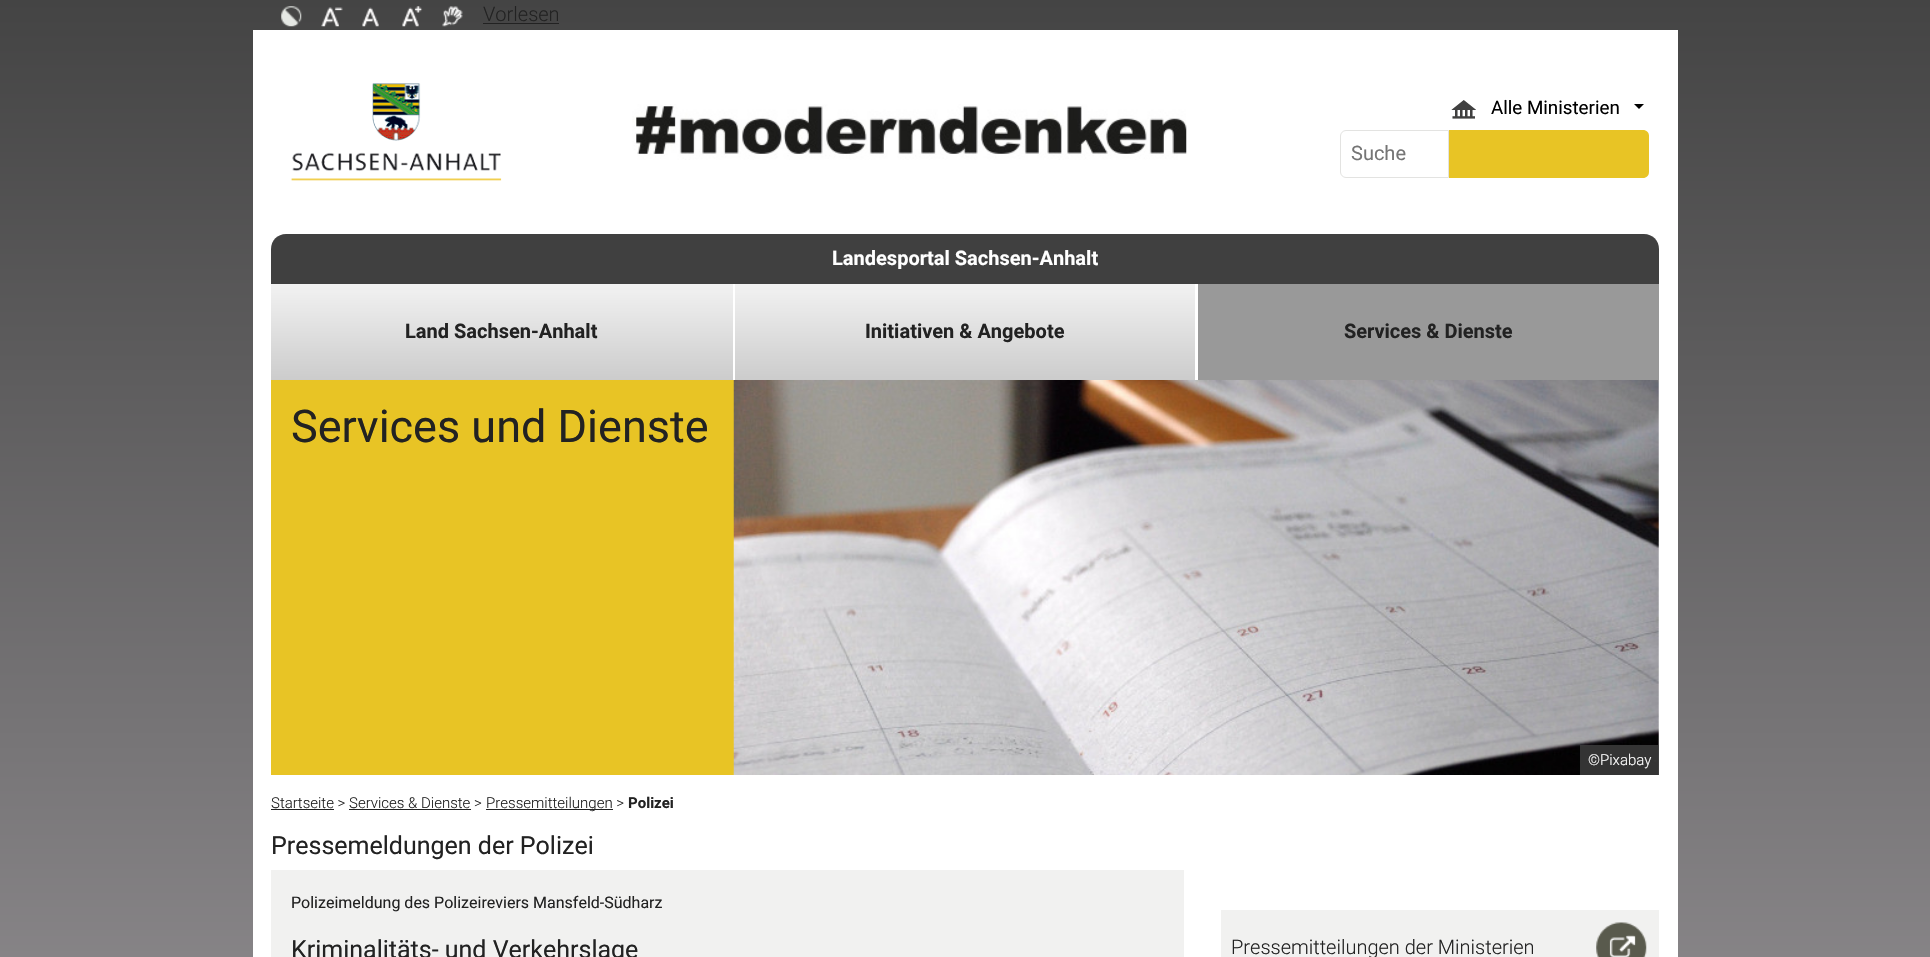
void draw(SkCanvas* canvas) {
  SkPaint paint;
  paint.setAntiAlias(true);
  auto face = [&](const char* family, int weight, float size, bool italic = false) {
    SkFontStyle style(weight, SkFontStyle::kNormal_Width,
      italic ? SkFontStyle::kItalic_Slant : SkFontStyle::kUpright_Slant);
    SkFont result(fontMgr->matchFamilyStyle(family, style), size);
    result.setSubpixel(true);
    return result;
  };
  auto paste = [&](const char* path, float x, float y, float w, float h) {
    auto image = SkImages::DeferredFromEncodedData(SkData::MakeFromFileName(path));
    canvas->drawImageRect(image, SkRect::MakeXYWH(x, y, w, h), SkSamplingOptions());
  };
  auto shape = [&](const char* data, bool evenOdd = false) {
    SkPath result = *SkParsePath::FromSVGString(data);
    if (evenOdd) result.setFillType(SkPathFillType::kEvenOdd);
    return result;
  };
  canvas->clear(0xffffffff);
  {
    const SkColor colors[] = {0xff444444, 0xff8f8c8f};
    const float stops[] = {0, 0.3f};
    const SkPoint ends[] = {{965, 0}, {965, 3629}};
    paint.setShader(SkGradientShader::MakeLinear(ends, colors, stops, 2, SkTileMode::kClamp));
    paint.setAlpha(255);
  }
  canvas->drawRect(SkRect::MakeXYWH(0, 0, 1930, 957), paint);
  paste("img/1.png", 281, 6, 21, 21);
  paste("img/2.png", 321, 7, 22, 20);
  paste("img/3.png", 362, 7, 17, 20);
  paste("img/4.png", 402, 6, 21, 21);
  paste("img/5.png", 442, 6, 21, 21);
  paint.setShader(nullptr);
  paint.setColor(0xff222222);
  canvas->drawRect(SkRect::MakeXYWH(483, 23, 76, 1), paint);
  paint.setColor(0xffffffff);
  canvas->drawRect(SkRect::MakeXYWH(253, 30, 1425, 927), paint);
  paste("img/6.png", 290, 83, 212, 98);
  paste("img/7.png", 632, 104, 555, 56);
  paste("img/8.png", 1451, 100, 25, 19);
  paint.setColor(0xff000000);
  canvas->drawPath(shape("M1634 104H1644L1639 109Z"), paint);
  paint.setStroke(true);
  paint.setStrokeWidth(1);
  paint.setColor(0xffe3e3e1);
  canvas->drawPath(shape("M1346 130.5H1448.5V177.5H1346C1343 177.5 1340.5 175 1340.5 172V136C1340.5 133 1343 130.5 1346 130.5Z"), paint);
  paint.setStroke(false);
  paint.setColor(0xffe8c425);
  canvas->drawPath(shape("M1449 130H1643C1646.5 130 1649 132.5 1649 136V172C1649 175.5 1646.5 178 1643 178H1449Z"), paint);
  paint.setColor(0xff404040);
  canvas->drawPath(shape("M286 234H1644C1652.5 234 1659 240.5 1659 249V284H271V249C271 240.5 277.5 234 286 234Z"), paint);
  {
    const SkColor colors[] = {0xfff2f2f2, 0xffcccccc};
    const float stops[] = {0, 1};
    const SkPoint ends[] = {{502, 284}, {502, 380}};
    paint.setShader(SkGradientShader::MakeLinear(ends, colors, stops, 2, SkTileMode::kClamp));
    paint.setAlpha(255);
  }
  canvas->drawRect(SkRect::MakeXYWH(271, 284, 462, 96), paint);
  {
    const SkColor colors[] = {0xfff2f2f2, 0xffcccccc};
    const float stops[] = {0, 1};
    const SkPoint ends[] = {{965, 284}, {965, 380}};
    paint.setShader(SkGradientShader::MakeLinear(ends, colors, stops, 2, SkTileMode::kClamp));
    paint.setAlpha(255);
  }
  canvas->drawRect(SkRect::MakeXYWH(735, 284, 460, 96), paint);
  paint.setShader(nullptr);
  paint.setColor(0xff999999);
  canvas->drawRect(SkRect::MakeXYWH(1198, 284, 461, 96), paint);
  paint.setColor(0xffe8c425);
  canvas->drawRect(SkRect::MakeXYWH(271, 380, 463, 395), paint);
  paste("img/9.png", 733, 380, 926, 395);
  {
    const struct { float x, y, w, h; SkColor color; } items[] = {
      {1580, 745, 79, 30, 0xcc404040},
      {271, 809, 63, 1, 0xff222222},
      {486, 809, 127, 1, 0xff222222},
      {349, 809, 122, 1, 0xff222222},
      {271, 870, 913, 87, 0xfff1f1f0},
      {1221, 910, 438, 47, 0xfff1f1f0},
    };
    for (auto [x, y, w, h, color] : items) {
      paint.setColor(color);
      canvas->drawRect(SkRect::MakeXYWH(x, y, w, h), paint);
    }
  }
  paste("img/10.png", 1596, 922, 51, 35);
  auto f0 = face("Roboto", 300, 20);
  paint.setColor(0xff222222);
  canvas->drawString("Vorlesen", 483, 21, f0, paint);
  auto f1 = face("Roboto", 400, 18.75f);
  paint.setColor(0xff000000);
  canvas->drawString("Alle Ministerien", 1491, 114, f1, paint);
  auto f2 = face("Roboto", 400, 20);
  paint.setColor(0xff757575);
  canvas->drawString("Suche", 1351, 160, f2, paint);
  auto f3 = face("Roboto", 700, 20);
  paint.setColor(0xffffffff);
  canvas->drawString("Landesportal Sachsen-Anhalt", 832, 265, f3, paint);
  paint.setColor(0xff222222);
  {
    const struct { const char* s; float x, y; } items[] = {
      {"Land Sachsen-Anhalt", 405, 338},
      {"Initiativen & Angebote", 865, 338},
      {"Services & Dienste", 1344, 338},
    };
    for (auto [s, x, y] : items) {
      canvas->drawString(s, x, y, f3, paint);
    }
  }
  auto f4 = face("Roboto", 400, 45);
  canvas->drawString("Services und Dienste", 291, 442, f4, paint);
  auto f5 = face("Roboto", 300, 15);
  paint.setColor(0xffffffff);
  canvas->drawString("©Pixabay", 1588, 765, f5, paint);
  paint.setColor(0xff222222);
  canvas->drawString("Startseite > Services & Dienste >", 271, 808, f5, paint);
  canvas->drawString("Pressemitteilungen >", 486, 808, f5, paint);
  auto f6 = face("Roboto", 700, 15);
  canvas->drawString("Polizei", 628, 808, f6, paint);
  auto f7 = face("Roboto", 400, 25);
  canvas->drawString("Pressemeldungen der Polizei", 271, 854, f7, paint);
  auto f8 = face("Roboto", 400, 16);
  canvas->drawString("Polizeimeldung des Polizeireviers Mansfeld-Südharz", 291, 908, f8, paint);
  canvas->drawString("Kriminalitäts- und Verkehrslage", 291, 958, f7, paint);
  canvas->drawString("Pressemitteilungen der Ministerien", 1231, 954, f0, paint);
}
